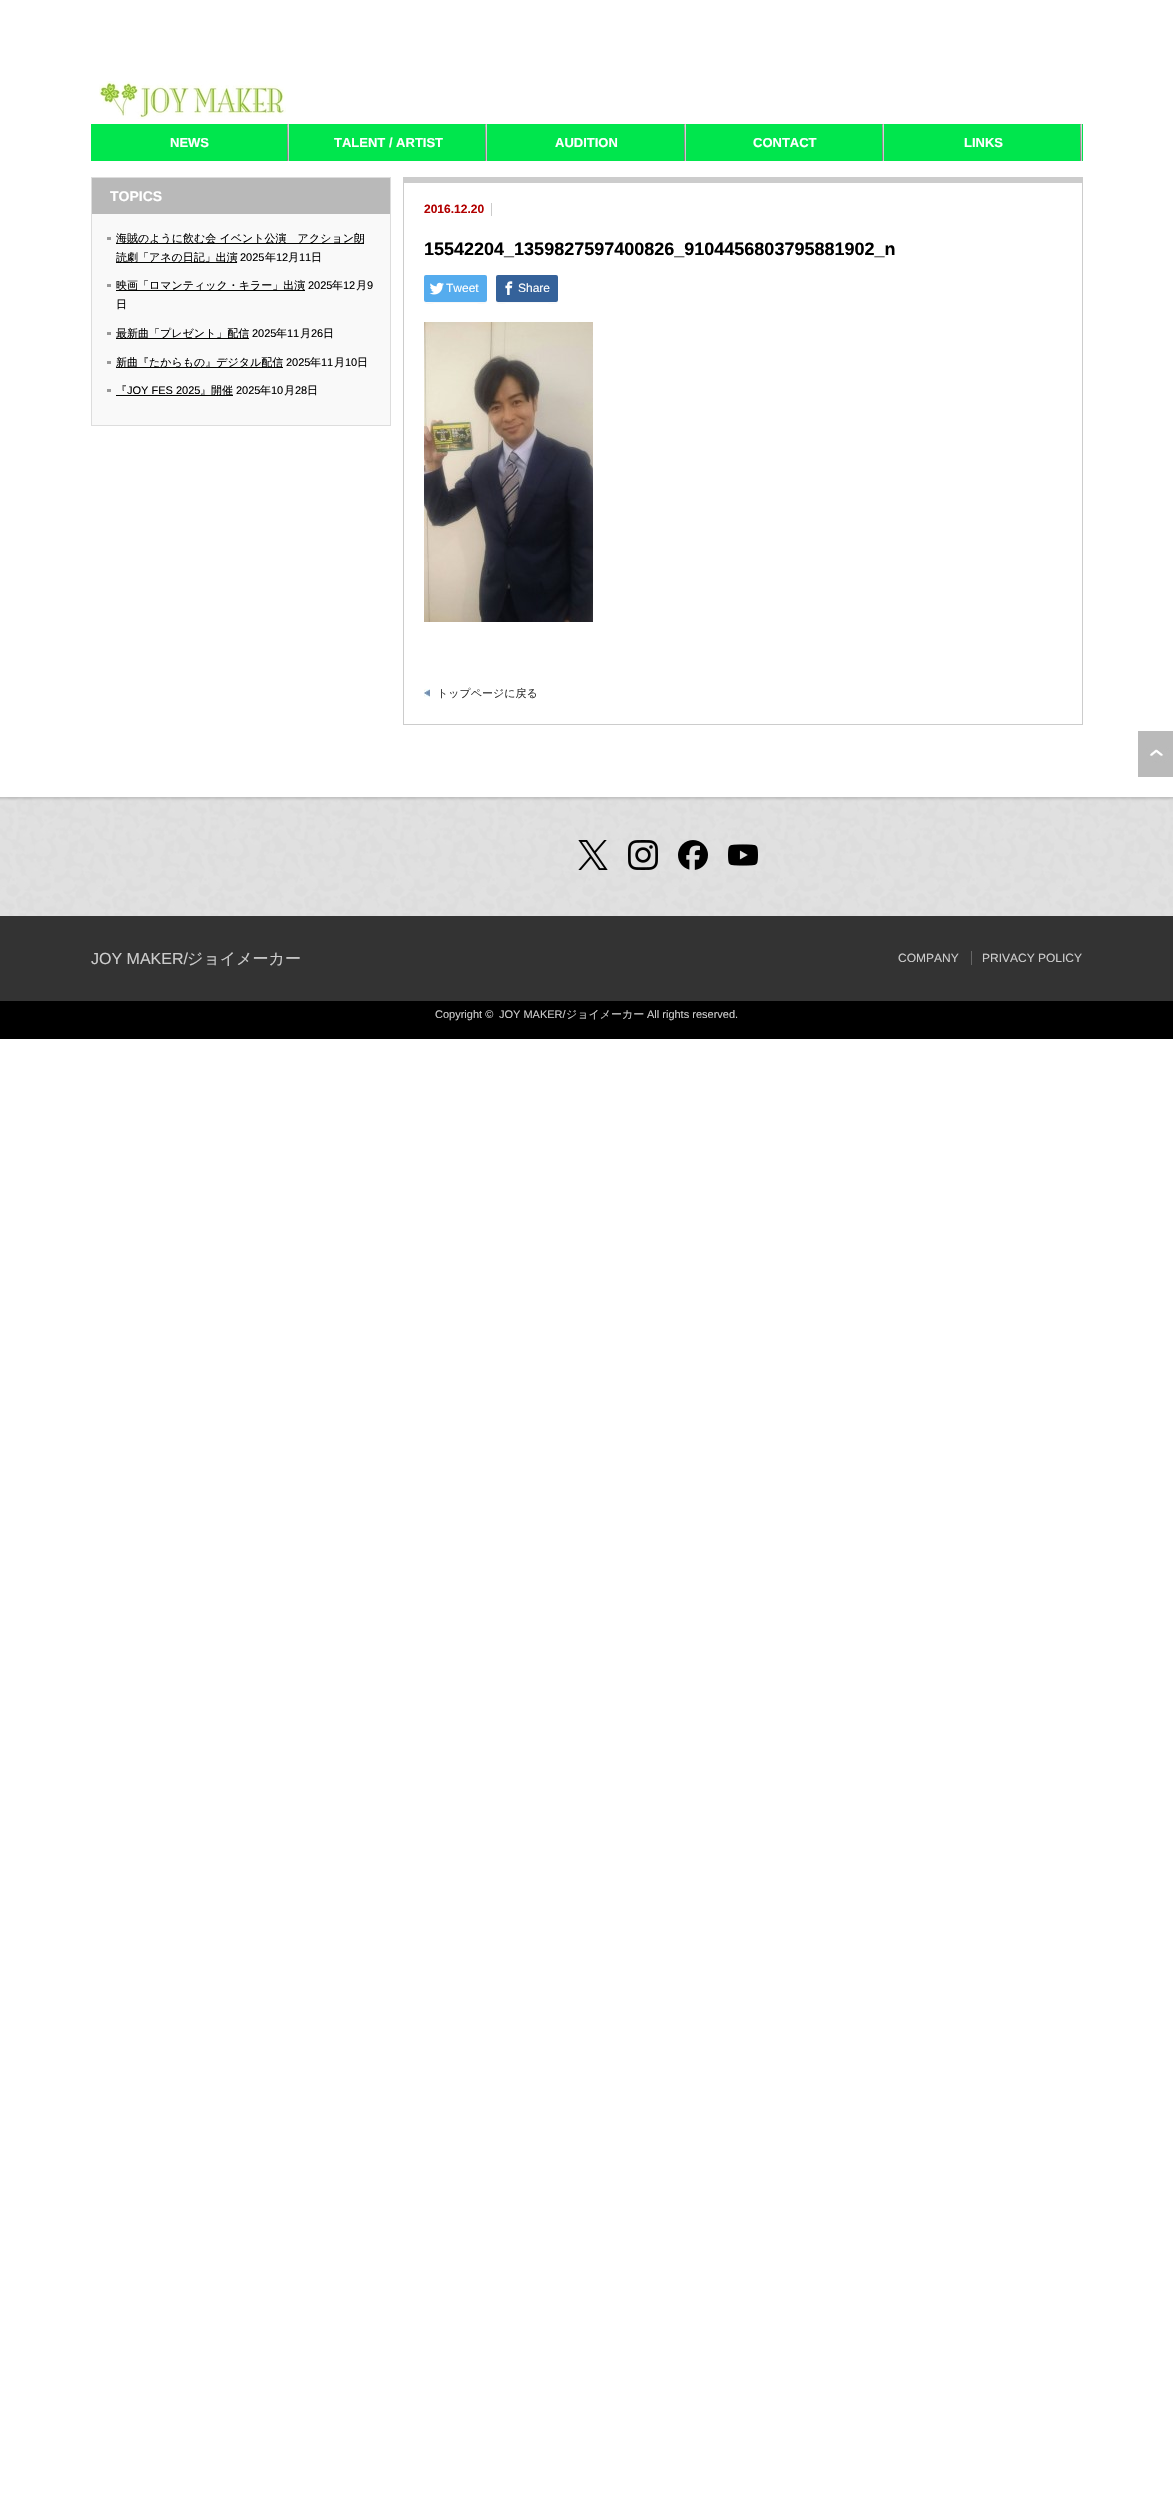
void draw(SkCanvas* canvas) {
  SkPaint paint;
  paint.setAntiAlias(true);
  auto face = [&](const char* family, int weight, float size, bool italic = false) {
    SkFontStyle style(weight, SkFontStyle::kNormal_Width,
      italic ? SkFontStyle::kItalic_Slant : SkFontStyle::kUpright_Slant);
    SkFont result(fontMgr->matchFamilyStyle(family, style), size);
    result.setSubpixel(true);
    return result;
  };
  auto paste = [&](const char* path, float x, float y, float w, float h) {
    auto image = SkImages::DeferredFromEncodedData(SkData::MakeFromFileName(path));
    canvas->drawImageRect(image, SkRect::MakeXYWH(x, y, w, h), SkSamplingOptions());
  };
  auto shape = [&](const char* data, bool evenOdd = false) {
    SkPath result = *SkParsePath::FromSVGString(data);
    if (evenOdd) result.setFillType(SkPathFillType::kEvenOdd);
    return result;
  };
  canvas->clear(0xffffffff);
  paste("img/1.png", 99, 81, 187, 38);
  paint.setColor(0xff00e64d);
  canvas->drawRect(SkRect::MakeXYWH(91, 124, 992, 37), paint);
  paste("img/2.png", 287, 124, 2, 37);
  paste("img/2.png", 485, 124, 2, 37);
  paste("img/2.png", 684, 124, 2, 37);
  paste("img/2.png", 882, 124, 2, 37);
  paste("img/2.png", 1080, 124, 2, 37);
  paint.setColor(0xfff9f9f9);
  canvas->drawRect(SkRect::MakeXYWH(92, 214, 298, 211), paint);
  paint.setStroke(true);
  paint.setStrokeWidth(1);
  paint.setColor(0xffdddddd);
  canvas->drawRect(SkRect::MakeXYWH(91.5f, 177.5f, 299, 248), paint);
  paint.setStroke(false);
  {
    const struct { float x, y, w, h; SkColor color; } items[] = {
      {92, 178, 298, 36, 0xffb9b9b9},
      {107, 237, 4, 3, 0xff999999},
      {116, 243, 248, 1, 0xff030502},
      {116, 262, 121, 1, 0xff030502},
      {107, 284, 4, 3, 0xff999999},
      {116, 290, 189, 1, 0xff030502},
      {107, 332, 4, 3, 0xff999999},
      {116, 338, 133, 1, 0xff030502},
      {107, 361, 4, 3, 0xff999999},
      {116, 367, 167, 1, 0xff030502},
      {107, 389, 4, 3, 0xff999999},
      {116, 395, 117, 1, 0xff030502},
      {403, 177, 680, 6, 0xffcccccc},
      {1082, 177, 1, 548, 0xffcccccc},
      {403, 724, 680, 1, 0xffcccccc},
      {403, 177, 1, 548, 0xffcccccc},
      {491, 203, 1, 13, 0xffcccccc},
    };
    for (auto [x, y, w, h, color] : items) {
      paint.setColor(color);
      canvas->drawRect(SkRect::MakeXYWH(x, y, w, h), paint);
    }
  }
  paint.setColor(0xfff7f7f7);
  canvas->drawPath(shape("M424 300C424 306 432 303 436 303H475C479 303 487 306 487 300L486 302H436C432 302 424 304 424 300Z"), paint);
  paint.setColor(0xff55acee);
  canvas->drawRoundRect(SkRect::MakeXYWH(424, 275, 63, 27), 2, 2, paint);
  paste("img/3.png", 429, 282, 15, 13);
  paint.setColor(0xfff7f7f7);
  canvas->drawPath(shape("M496 300C496 306 504 303 508 303H546C550 303 558 306 558 300C558 304 550 302 546 302H497Z"), paint);
  paint.setColor(0xff35629a);
  canvas->drawRoundRect(SkRect::MakeXYWH(496, 275, 62, 27), 2, 2, paint);
  paste("img/4.png", 505, 281, 8, 14);
  paste("img/5.png", 424, 322, 169, 300);
  paste("img/6.png", 424, 689, 6, 8);
  paste("img/7.png", 1138, 731, 35, 46);
  paste("img/8.png", 0, 797, 1173, 119);
  paste("img/9.png", 578, 840, 30, 30);
  paste("img/10.png", 628, 840, 30, 30);
  paste("img/11.png", 678, 840, 30, 30);
  paste("img/12.png", 728, 844, 30, 22);
  {
    const struct { float x, y, w, h; SkColor color; } items[] = {
      {0, 916, 1173, 85, 0xff333333},
      {971, 951, 1, 14, 0xff666666},
      {0, 1001, 1173, 38, 0xff000000},
    };
    for (auto [x, y, w, h, color] : items) {
      paint.setColor(color);
      canvas->drawRect(SkRect::MakeXYWH(x, y, w, h), paint);
    }
  }
  auto f0 = face("Liberation Sans", 700, 13);
  paint.setColor(0xffffffff);
  {
    const struct { const char* s; float x, y; } items[] = {
      {"NEWS", 170, 147},
      {"TALENT / ARTIST", 334, 147},
      {"AUDITION", 555, 147},
      {"CONTACT", 753, 147},
      {"LINKS", 964, 147},
    };
    for (auto [s, x, y] : items) {
      canvas->drawString(s, x, y, f0, paint);
    }
  }
  auto f1 = face("Liberation Sans", 700, 14);
  canvas->drawString("TOPICS", 110, 201, f1, paint);
  auto f2 = face("WenQuanYi Zen Hei", 500, 11);
  paint.setColor(0xff000000);
  canvas->drawString("海賊のように飲む会 イベント公演　アクション朗", 116, 242, f2, paint);
  canvas->drawString("読劇「アネの日記」出演", 116, 261, f2, paint);
  auto f3 = face("Liberation Sans", 400, 11);
  canvas->drawString("2025", 240, 261, f3, paint);
  canvas->drawString("年", 265, 261, f2, paint);
  canvas->drawString("12", 276, 261, f3, paint);
  canvas->drawString("月", 288, 261, f2, paint);
  canvas->drawString("11", 299, 261, f3, paint);
  canvas->drawString("日", 311, 261, f2, paint);
  canvas->drawString("映画「ロマンティック・キラー」出演", 116, 289, f2, paint);
  canvas->drawString("2025", 308, 289, f3, paint);
  canvas->drawString("年", 332, 289, f2, paint);
  canvas->drawString("12", 343, 289, f3, paint);
  canvas->drawString("月", 356, 289, f2, paint);
  canvas->drawString("9", 367, 289, f3, paint);
  canvas->drawString("日", 116, 308, f2, paint);
  canvas->drawString("最新曲「プレゼント」配信", 116, 337, f2, paint);
  canvas->drawString("2025", 252, 337, f3, paint);
  canvas->drawString("年", 276, 337, f2, paint);
  canvas->drawString("11", 287, 337, f3, paint);
  canvas->drawString("月", 300, 337, f2, paint);
  canvas->drawString("26", 311, 337, f3, paint);
  canvas->drawString("日", 323, 337, f2, paint);
  canvas->drawString("新曲『たからもの』デジタル配信", 116, 366, f2, paint);
  canvas->drawString("2025", 286, 366, f3, paint);
  canvas->drawString("年", 310, 366, f2, paint);
  canvas->drawString("11", 321, 366, f3, paint);
  canvas->drawString("月", 334, 366, f2, paint);
  canvas->drawString("10", 345, 366, f3, paint);
  canvas->drawString("日", 357, 366, f2, paint);
  canvas->drawString("『", 116, 394, f2, paint);
  canvas->drawString("JOY FES 2025", 127, 394, f3, paint);
  canvas->drawString("』開催", 200, 394, f2, paint);
  canvas->drawString("2025", 236, 394, f3, paint);
  canvas->drawString("年", 260, 394, f2, paint);
  canvas->drawString("10", 271, 394, f3, paint);
  canvas->drawString("月", 284, 394, f2, paint);
  canvas->drawString("28", 295, 394, f3, paint);
  canvas->drawString("日", 307, 394, f2, paint);
  auto f4 = face("Liberation Sans", 700, 12);
  paint.setColor(0xffb20000);
  canvas->drawString("2016.12.20", 424, 213, f4, paint);
  auto f5 = face("Liberation Sans", 700, 18);
  paint.setColor(0xff000000);
  canvas->drawString("15542204_1359827597400826_9104456803795881902_n", 424, 255, f5, paint);
  auto f6 = face("Liberation Sans", 400, 12);
  paint.setColor(0xffffffff);
  canvas->drawString("Tweet", 446, 292, f6, paint);
  canvas->drawString("Share", 518, 292, f6, paint);
  paint.setColor(0xff333333);
  canvas->drawString("トップページに戻る", 437, 697, f2, paint);
  auto f7 = face("Liberation Sans", 400, 16);
  paint.setColor(0xffcccccc);
  canvas->drawString("JOY MAKER/", 91, 964, f7, paint);
  auto f8 = face("WenQuanYi Zen Hei", 500, 16);
  canvas->drawString("ジョイメーカー", 187, 964, f8, paint);
  canvas->drawString("COMPANY", 898, 962, f6, paint);
  canvas->drawString("PRIVACY POLICY", 982, 962, f6, paint);
  canvas->drawString("Copyright ©", 435, 1018, f3, paint);
  canvas->drawString("JOY MAKER/", 499, 1018, f3, paint);
  canvas->drawString("ジョイメーカー", 566, 1018, f2, paint);
  canvas->drawString("All rights reserved.", 647, 1018, f3, paint);
}
